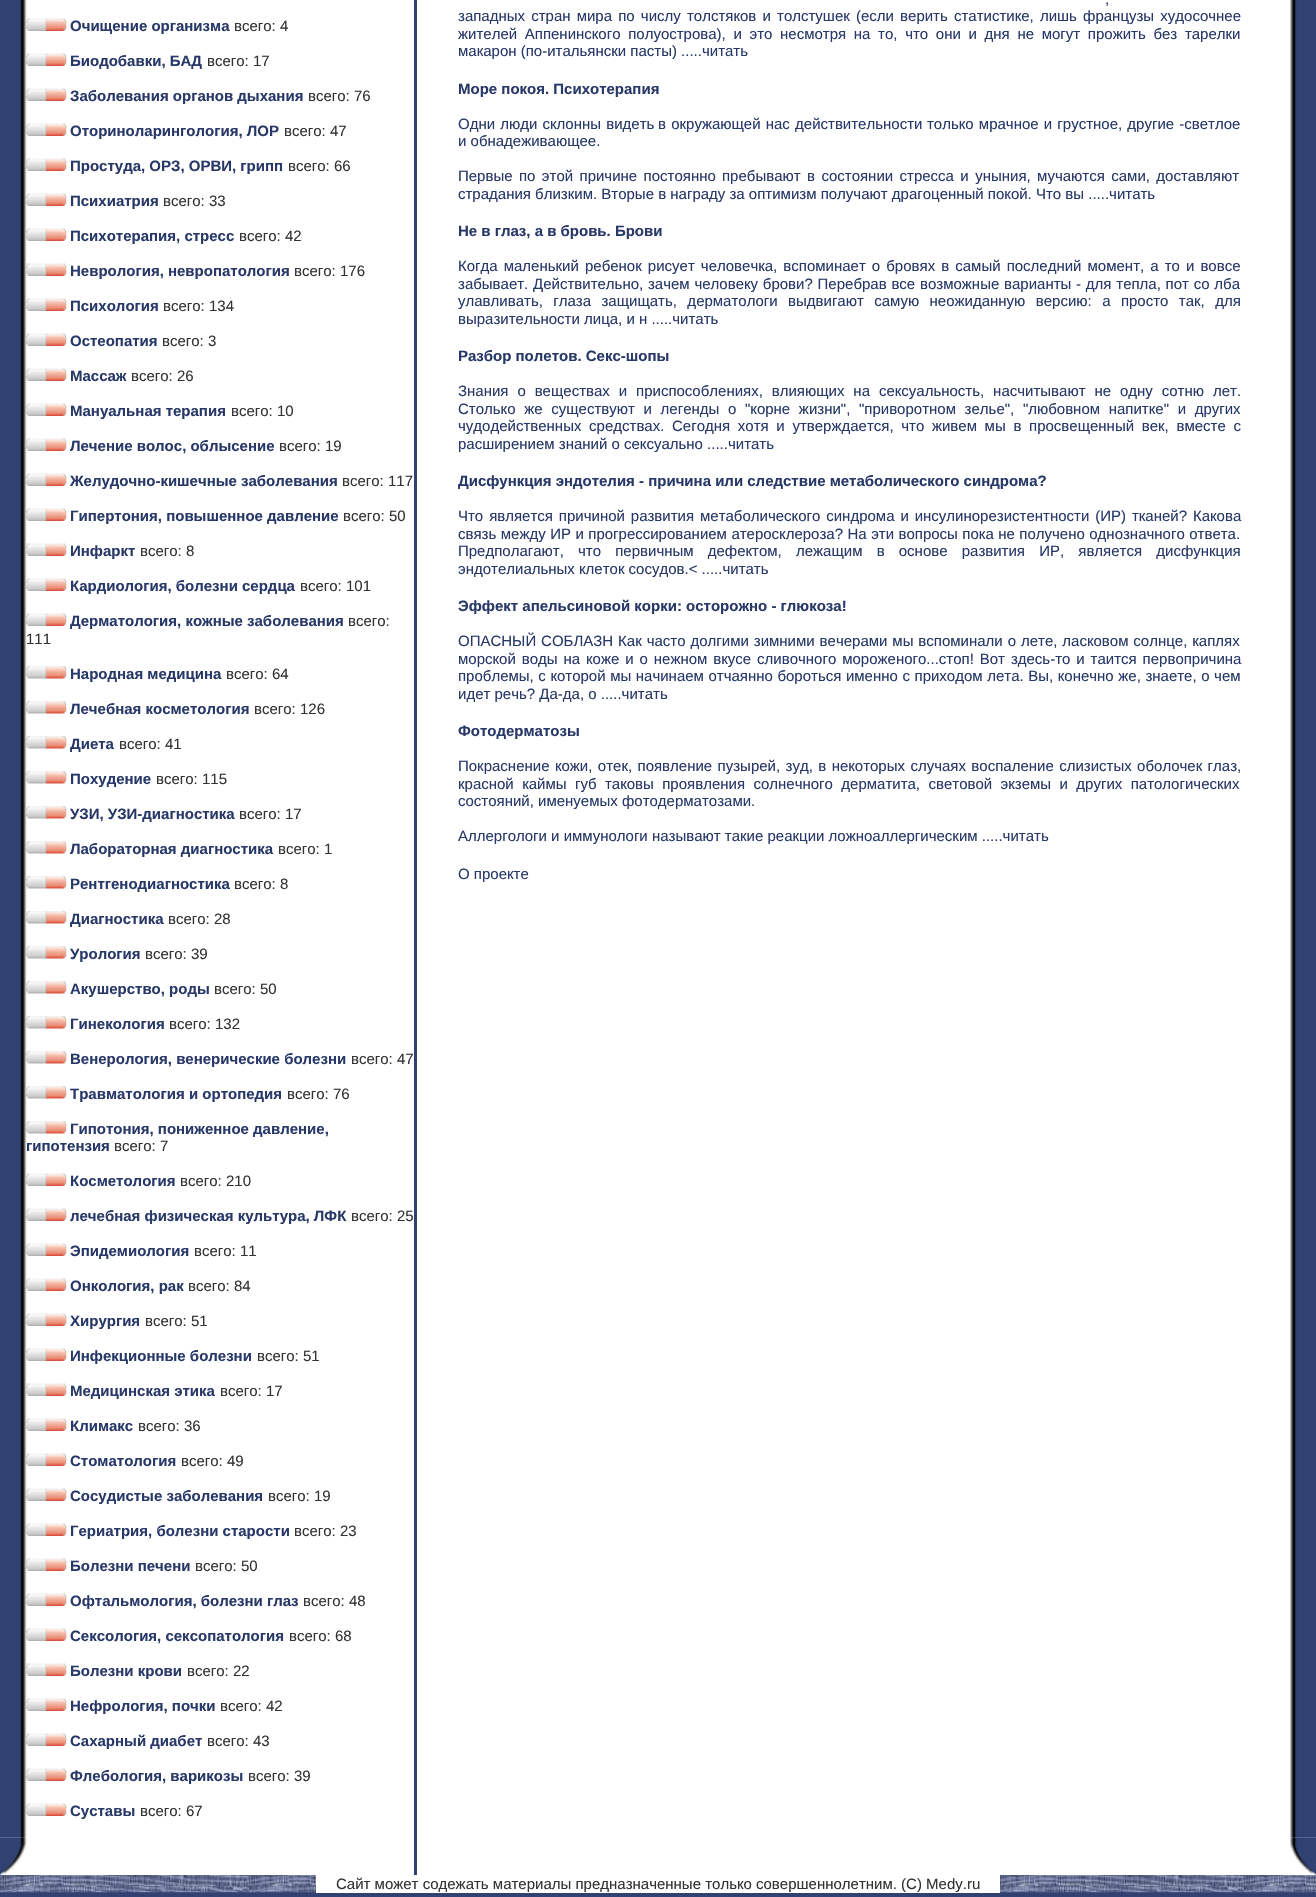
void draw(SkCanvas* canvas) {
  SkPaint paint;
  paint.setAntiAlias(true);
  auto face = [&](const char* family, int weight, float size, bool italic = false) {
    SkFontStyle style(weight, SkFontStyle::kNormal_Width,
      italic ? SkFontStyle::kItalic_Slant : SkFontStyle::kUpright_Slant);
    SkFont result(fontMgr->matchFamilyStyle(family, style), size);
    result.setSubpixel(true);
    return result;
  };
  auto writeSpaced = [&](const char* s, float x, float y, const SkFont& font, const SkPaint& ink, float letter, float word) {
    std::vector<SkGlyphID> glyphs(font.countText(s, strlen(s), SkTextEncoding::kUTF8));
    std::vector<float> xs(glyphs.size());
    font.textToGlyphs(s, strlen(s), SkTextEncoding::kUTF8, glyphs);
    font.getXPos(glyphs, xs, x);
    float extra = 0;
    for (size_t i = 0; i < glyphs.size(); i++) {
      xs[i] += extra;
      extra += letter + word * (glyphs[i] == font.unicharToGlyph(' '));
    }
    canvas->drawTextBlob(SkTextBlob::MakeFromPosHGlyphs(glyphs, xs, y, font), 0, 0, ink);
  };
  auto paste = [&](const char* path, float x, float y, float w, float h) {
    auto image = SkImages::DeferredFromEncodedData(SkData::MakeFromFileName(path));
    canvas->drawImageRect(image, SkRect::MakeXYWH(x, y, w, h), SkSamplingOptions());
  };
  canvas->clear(0xff314172);
  paste("img/1.png", 0, 1875, 1316, 18);
  paint.setColor(0xffffffff);
  canvas->drawRect(SkRect::MakeXYWH(0, 0, 1316, 1875), paint);
  paste("img/2.png", 0, 0, 27, 1838);
  paste("img/3.png", 26, 18, 41, 13);
  paste("img/4.png", 26, 53, 41, 13);
  paste("img/3.png", 26, 88, 41, 13);
  paste("img/5.png", 26, 123, 41, 13);
  paste("img/3.png", 26, 158, 41, 13);
  paste("img/3.png", 26, 193, 41, 13);
  paste("img/3.png", 26, 228, 41, 13);
  paste("img/3.png", 26, 263, 41, 13);
  paste("img/3.png", 26, 298, 41, 13);
  paste("img/3.png", 26, 333, 41, 13);
  paste("img/3.png", 26, 368, 41, 13);
  paste("img/3.png", 26, 403, 41, 13);
  paste("img/3.png", 26, 438, 41, 13);
  paste("img/3.png", 26, 473, 41, 13);
  paste("img/3.png", 26, 508, 41, 13);
  paste("img/3.png", 26, 543, 41, 13);
  paste("img/3.png", 26, 578, 41, 13);
  paste("img/3.png", 26, 613, 41, 13);
  paste("img/6.png", 26, 666, 41, 13);
  paste("img/6.png", 26, 701, 41, 13);
  paste("img/6.png", 26, 736, 41, 13);
  paste("img/6.png", 26, 771, 41, 13);
  paste("img/6.png", 26, 806, 41, 13);
  paste("img/6.png", 26, 841, 41, 13);
  paste("img/6.png", 26, 876, 41, 13);
  paste("img/6.png", 26, 911, 41, 13);
  paste("img/6.png", 26, 946, 41, 13);
  paste("img/6.png", 26, 981, 41, 13);
  paste("img/6.png", 26, 1016, 41, 13);
  paste("img/6.png", 26, 1051, 41, 13);
  paste("img/6.png", 26, 1086, 41, 13);
  paste("img/6.png", 26, 1121, 41, 13);
  paste("img/3.png", 26, 1173, 41, 13);
  paste("img/3.png", 26, 1208, 41, 13);
  paste("img/3.png", 26, 1243, 41, 13);
  paste("img/3.png", 26, 1278, 41, 13);
  paste("img/3.png", 26, 1313, 41, 13);
  paste("img/3.png", 26, 1348, 41, 13);
  paste("img/3.png", 26, 1383, 41, 13);
  paste("img/3.png", 26, 1418, 41, 13);
  paste("img/3.png", 26, 1453, 41, 13);
  paste("img/3.png", 26, 1488, 41, 13);
  paste("img/3.png", 26, 1523, 41, 13);
  paste("img/3.png", 26, 1558, 41, 13);
  paste("img/3.png", 26, 1593, 41, 13);
  paste("img/3.png", 26, 1628, 41, 13);
  paste("img/3.png", 26, 1663, 41, 13);
  paste("img/3.png", 26, 1698, 41, 13);
  paste("img/3.png", 26, 1733, 41, 13);
  paste("img/3.png", 26, 1768, 41, 13);
  paste("img/3.png", 26, 1803, 41, 13);
  paint.setColor(0xff314172);
  canvas->drawRect(SkRect::MakeXYWH(414, 0, 3, 1875), paint);
  paste("img/7.png", 1290, 0, 26, 1838);
  paste("img/8.png", 0, 1837, 27, 38);
  paste("img/9.png", 1290, 1837, 26, 38);
  paint.setColor(0xffffffff);
  canvas->drawRect(SkRect::MakeXYWH(316, 1875, 684, 18), paint);
  auto f0 = face("Liberation Sans", 700, 15);
  paint.setColor(0xff283868);
  canvas->drawString("Очищение организма", 70, 31, f0, paint);
  auto f1 = face("Liberation Sans", 400, 15);
  paint.setColor(0xff333333);
  canvas->drawString("всего: 4", 234, 31, f1, paint);
  paint.setColor(0xff283868);
  canvas->drawString("Биодобавки, БАД", 70, 66, f0, paint);
  paint.setColor(0xff333333);
  canvas->drawString("всего: 17", 207, 66, f1, paint);
  paint.setColor(0xff283868);
  canvas->drawString("Заболевания органов дыхания", 70, 101, f0, paint);
  paint.setColor(0xff333333);
  canvas->drawString("всего: 76", 308, 101, f1, paint);
  paint.setColor(0xff283868);
  canvas->drawString("Оториноларингология, ЛОР", 70, 136, f0, paint);
  paint.setColor(0xff333333);
  canvas->drawString("всего: 47", 284, 136, f1, paint);
  paint.setColor(0xff283868);
  canvas->drawString("Простуда, ОРЗ, ОРВИ, грипп", 70, 171, f0, paint);
  paint.setColor(0xff333333);
  canvas->drawString("всего: 66", 288, 171, f1, paint);
  paint.setColor(0xff283868);
  canvas->drawString("Психиатрия", 70, 206, f0, paint);
  paint.setColor(0xff333333);
  canvas->drawString("всего: 33", 163, 206, f1, paint);
  paint.setColor(0xff283868);
  canvas->drawString("Психотерапия, стресс", 70, 241, f0, paint);
  paint.setColor(0xff333333);
  canvas->drawString("всего: 42", 239, 241, f1, paint);
  paint.setColor(0xff283868);
  canvas->drawString("Неврология, невропатология", 70, 276, f0, paint);
  paint.setColor(0xff333333);
  canvas->drawString("всего: 176", 294, 276, f1, paint);
  paint.setColor(0xff283868);
  canvas->drawString("Психология", 70, 311, f0, paint);
  paint.setColor(0xff333333);
  canvas->drawString("всего: 134", 163, 311, f1, paint);
  paint.setColor(0xff283868);
  canvas->drawString("Остеопатия", 70, 346, f0, paint);
  paint.setColor(0xff333333);
  canvas->drawString("всего: 3", 162, 346, f1, paint);
  paint.setColor(0xff283868);
  canvas->drawString("Массаж", 70, 381, f0, paint);
  paint.setColor(0xff333333);
  canvas->drawString("всего: 26", 131, 381, f1, paint);
  paint.setColor(0xff283868);
  canvas->drawString("Мануальная терапия", 70, 416, f0, paint);
  paint.setColor(0xff333333);
  canvas->drawString("всего: 10", 231, 416, f1, paint);
  paint.setColor(0xff283868);
  canvas->drawString("Лечение волос, облысение", 70, 451, f0, paint);
  paint.setColor(0xff333333);
  canvas->drawString("всего: 19", 279, 451, f1, paint);
  paint.setColor(0xff283868);
  canvas->drawString("Желудочно-кишечные заболевания", 70, 486, f0, paint);
  paint.setColor(0xff333333);
  canvas->drawString("всего: 117", 342, 486, f1, paint);
  paint.setColor(0xff283868);
  canvas->drawString("Гипертония, повышенное давление", 70, 521, f0, paint);
  paint.setColor(0xff333333);
  canvas->drawString("всего: 50", 343, 521, f1, paint);
  paint.setColor(0xff283868);
  canvas->drawString("Инфаркт", 70, 556, f0, paint);
  paint.setColor(0xff333333);
  canvas->drawString("всего: 8", 140, 556, f1, paint);
  paint.setColor(0xff283868);
  canvas->drawString("Кардиология, болезни сердца", 70, 591, f0, paint);
  paint.setColor(0xff333333);
  canvas->drawString("всего: 101", 300, 591, f1, paint);
  paint.setColor(0xff283868);
  canvas->drawString("Дерматология, кожные заболевания", 70, 626, f0, paint);
  paint.setColor(0xff333333);
  canvas->drawString("всего:", 348, 626, f1, paint);
  canvas->drawString("111", 26, 644, f1, paint);
  paint.setColor(0xff283868);
  canvas->drawString("Народная медицина", 70, 679, f0, paint);
  paint.setColor(0xff333333);
  canvas->drawString("всего: 64", 226, 679, f1, paint);
  paint.setColor(0xff283868);
  canvas->drawString("Лечебная косметология", 70, 714, f0, paint);
  paint.setColor(0xff333333);
  canvas->drawString("всего: 126", 254, 714, f1, paint);
  paint.setColor(0xff283868);
  canvas->drawString("Диета", 70, 749, f0, paint);
  paint.setColor(0xff333333);
  canvas->drawString("всего: 41", 119, 749, f1, paint);
  paint.setColor(0xff283868);
  canvas->drawString("Похудение", 70, 784, f0, paint);
  paint.setColor(0xff333333);
  canvas->drawString("всего: 115", 156, 784, f1, paint);
  paint.setColor(0xff283868);
  canvas->drawString("УЗИ, УЗИ-диагностика", 70, 819, f0, paint);
  paint.setColor(0xff333333);
  canvas->drawString("всего: 17", 239, 819, f1, paint);
  paint.setColor(0xff283868);
  canvas->drawString("Лабораторная диагностика", 70, 854, f0, paint);
  paint.setColor(0xff333333);
  canvas->drawString("всего: 1", 278, 854, f1, paint);
  paint.setColor(0xff283868);
  canvas->drawString("Рентгенодиагностика", 70, 889, f0, paint);
  paint.setColor(0xff333333);
  canvas->drawString("всего: 8", 234, 889, f1, paint);
  paint.setColor(0xff283868);
  canvas->drawString("Диагностика", 70, 924, f0, paint);
  paint.setColor(0xff333333);
  canvas->drawString("всего: 28", 168, 924, f1, paint);
  paint.setColor(0xff283868);
  canvas->drawString("Урология", 70, 959, f0, paint);
  paint.setColor(0xff333333);
  canvas->drawString("всего: 39", 145, 959, f1, paint);
  paint.setColor(0xff283868);
  canvas->drawString("Акушерство, роды", 70, 994, f0, paint);
  paint.setColor(0xff333333);
  canvas->drawString("всего: 50", 214, 994, f1, paint);
  paint.setColor(0xff283868);
  canvas->drawString("Гинекология", 70, 1029, f0, paint);
  paint.setColor(0xff333333);
  canvas->drawString("всего: 132", 169, 1029, f1, paint);
  paint.setColor(0xff283868);
  canvas->drawString("Венерология, венерические болезни", 70, 1064, f0, paint);
  paint.setColor(0xff333333);
  canvas->drawString("всего: 47", 351, 1064, f1, paint);
  paint.setColor(0xff283868);
  canvas->drawString("Травматология и ортопедия", 70, 1099, f0, paint);
  paint.setColor(0xff333333);
  canvas->drawString("всего: 76", 287, 1099, f1, paint);
  paint.setColor(0xff283868);
  canvas->drawString("Гипотония, пониженное давление,", 70, 1134, f0, paint);
  canvas->drawString("гипотензия", 26, 1151, f0, paint);
  paint.setColor(0xff333333);
  canvas->drawString("всего: 7", 114, 1151, f1, paint);
  paint.setColor(0xff283868);
  canvas->drawString("Косметология", 70, 1186, f0, paint);
  paint.setColor(0xff333333);
  canvas->drawString("всего: 210", 180, 1186, f1, paint);
  paint.setColor(0xff283868);
  canvas->drawString("лечебная физическая культура, ЛФК", 70, 1221, f0, paint);
  paint.setColor(0xff333333);
  canvas->drawString("всего: 25", 351, 1221, f1, paint);
  paint.setColor(0xff283868);
  canvas->drawString("Эпидемиология", 70, 1256, f0, paint);
  paint.setColor(0xff333333);
  canvas->drawString("всего: 11", 194, 1256, f1, paint);
  paint.setColor(0xff283868);
  canvas->drawString("Онкология, рак", 70, 1291, f0, paint);
  paint.setColor(0xff333333);
  canvas->drawString("всего: 84", 188, 1291, f1, paint);
  paint.setColor(0xff283868);
  canvas->drawString("Хирургия", 70, 1326, f0, paint);
  paint.setColor(0xff333333);
  canvas->drawString("всего: 51", 145, 1326, f1, paint);
  paint.setColor(0xff283868);
  canvas->drawString("Инфекционные болезни", 70, 1361, f0, paint);
  paint.setColor(0xff333333);
  canvas->drawString("всего: 51", 257, 1361, f1, paint);
  paint.setColor(0xff283868);
  canvas->drawString("Медицинская этика", 70, 1396, f0, paint);
  paint.setColor(0xff333333);
  canvas->drawString("всего: 17", 220, 1396, f1, paint);
  paint.setColor(0xff283868);
  canvas->drawString("Климакс", 70, 1431, f0, paint);
  paint.setColor(0xff333333);
  canvas->drawString("всего: 36", 138, 1431, f1, paint);
  paint.setColor(0xff283868);
  canvas->drawString("Стоматология", 70, 1466, f0, paint);
  paint.setColor(0xff333333);
  canvas->drawString("всего: 49", 181, 1466, f1, paint);
  paint.setColor(0xff283868);
  canvas->drawString("Сосудистые заболевания", 70, 1501, f0, paint);
  paint.setColor(0xff333333);
  canvas->drawString("всего: 19", 268, 1501, f1, paint);
  paint.setColor(0xff283868);
  canvas->drawString("Гериатрия, болезни старости", 70, 1536, f0, paint);
  paint.setColor(0xff333333);
  canvas->drawString("всего: 23", 294, 1536, f1, paint);
  paint.setColor(0xff283868);
  canvas->drawString("Болезни печени", 70, 1571, f0, paint);
  paint.setColor(0xff333333);
  canvas->drawString("всего: 50", 195, 1571, f1, paint);
  paint.setColor(0xff283868);
  canvas->drawString("Офтальмология, болезни глаз", 70, 1606, f0, paint);
  paint.setColor(0xff333333);
  canvas->drawString("всего: 48", 303, 1606, f1, paint);
  paint.setColor(0xff283868);
  canvas->drawString("Сексология, сексопатология", 70, 1641, f0, paint);
  paint.setColor(0xff333333);
  canvas->drawString("всего: 68", 289, 1641, f1, paint);
  paint.setColor(0xff283868);
  canvas->drawString("Болезни крови", 70, 1676, f0, paint);
  paint.setColor(0xff333333);
  canvas->drawString("всего: 22", 187, 1676, f1, paint);
  paint.setColor(0xff283868);
  canvas->drawString("Нефрология, почки", 70, 1711, f0, paint);
  paint.setColor(0xff333333);
  canvas->drawString("всего: 42", 220, 1711, f1, paint);
  paint.setColor(0xff283868);
  canvas->drawString("Сахарный диабет", 70, 1746, f0, paint);
  paint.setColor(0xff333333);
  canvas->drawString("всего: 43", 207, 1746, f1, paint);
  paint.setColor(0xff283868);
  canvas->drawString("Флебология, варикозы", 70, 1781, f0, paint);
  paint.setColor(0xff333333);
  canvas->drawString("всего: 39", 248, 1781, f1, paint);
  paint.setColor(0xff283868);
  canvas->drawString("Суставы", 70, 1816, f0, paint);
  paint.setColor(0xff333333);
  canvas->drawString("всего: 67", 140, 1816, f1, paint);
  paint.setColor(0xff283868);
  writeSpaced(",", 1105, 4, f1, paint, 0, 7);
  writeSpaced("западных стран мира по числу толстяков и толстушек (если верить статистике, лишь французы худосочнее", 458, 21, f1, paint, 0, 2);
  writeSpaced("жителей Аппенинского полуострова), и это несмотря на то, что они и дня не могут прожить без тарелки", 458, 39, f1, paint, 0, 3.5f);
  canvas->drawString("макарон (по-итальянски пасты) .....читать", 458, 56, f1, paint);
  canvas->drawString("Море покоя. Психотерапия", 458, 94, f0, paint);
  {
    const struct { const char* s; float x, y; } items[] = {
      {"Одни люди склонны видеть", 458, 129},
      {"в окружающей нас действительности", 658, 129},
      {"только мрачное и грустное, другие -светлое", 927, 129},
    };
    for (auto [s, x, y] : items) {
      writeSpaced(s, x, y, f1, paint, 0, 1);
    }
  }
  canvas->drawString("и обнадеживающее.", 458, 146, f1, paint);
  writeSpaced("Первые по этой причине постоянно", 458, 181, f1, paint, 0, 2.25f);
  writeSpaced("пребывают в состоянии стресса и уныния, мучаются сами, доставляют", 722, 181, f1, paint, 0, 2.25f);
  canvas->drawString("страдания близким. Вторые в награду за оптимизм получают драгоценный покой. Что вы .....читать", 458, 199, f1, paint);
  canvas->drawString("Не в глаз, а в бровь. Брови", 458, 236, f0, paint);
  writeSpaced("Когда маленький ребенок рисует человечка, вспоминает о бровях в самый последний момент, а то и вовсе", 458, 271, f1, paint, 0, 1.9f);
  writeSpaced("забывает. Действительно, зачем человеку брови? Перебрав все возможные варианты - для тепла, пот со лба", 458, 289, f1, paint, 0, 0.6f);
  writeSpaced("улавливать, глаза защищать, дерматологи выдвигают самую неожиданную версию: а просто так, для", 458, 306, f1, paint, 0, 6.25f);
  canvas->drawString("выразительности лица, и н .....читать", 458, 324, f1, paint);
  canvas->drawString("Разбор полетов. Секс-шопы", 458, 361, f0, paint);
  writeSpaced("Знания о веществах и приспособлениях, влияющих на сексуальность, насчитывают не одну сотню лет.", 458, 396, f1, paint, 0, 4.75f);
  writeSpaced("Столько же существуют и легенды о \"корне жизни\", \"приворотном зелье\", \"любовном напитке\" и других", 458, 414, f1, paint, 0, 4.5f);
  writeSpaced("чудодейственных средствах. Сегодня хотя и утверждается, что живем мы в просвещенный век, вместе с", 458, 431, f1, paint, 0, 3.5f);
  canvas->drawString("расширением знаний о сексуально .....читать", 458, 449, f1, paint);
  canvas->drawString("Дисфункция эндотелия - причина или следствие метаболического синдрома?", 458, 486, f0, paint);
  writeSpaced("Что является причиной развития метаболического синдрома и инсулинорезистентности (ИР) тканей? Какова", 458, 521, f1, paint, 0, 1.75f);
  writeSpaced("связь между ИР и прогрессированием атеросклероза? На эти вопросы пока не получено однозначного ответа.", 458, 539, f1, paint, 0, 0.3f);
  writeSpaced("Предполагают, что первичным дефектом, лежащим в основе развития ИР, является дисфункция", 458, 556, f1, paint, 0, 10);
  canvas->drawString("эндотелиальных клеток сосудов.< .....читать", 458, 574, f1, paint);
  canvas->drawString("Эффект апельсиновой корки: осторожно - глюкоза!", 458, 611, f0, paint);
  writeSpaced("ОПАСНЫЙ СОБЛАЗН Как часто долгими зимними вечерами мы вспоминали о лете, ласковом солнце, каплях", 458, 646, f1, paint, 0, 0.75f);
  writeSpaced("морской воды на коже и о нежном вкусе сливочного мороженого...стоп! Вот здесь-то и таится первопричина", 458, 664, f1, paint, 0, 1.75f);
  writeSpaced("проблемы, с которой мы начинаем отчаянно бороться именно с приходом лета. Вы, конечно же, знаете, о чем", 458, 681, f1, paint, 0, 0.4f);
  canvas->drawString("идет речь? Да-да, о .....читать", 458, 699, f1, paint);
  canvas->drawString("Фотодерматозы", 458, 736, f0, paint);
  writeSpaced("Покраснение кожи, отек, появление пузырей, зуд, в некоторых случаях воспаление слизистых оболочек глаз,", 458, 771, f1, paint, 0, 1.25f);
  writeSpaced("красной каймы губ таковы проявления солнечного дерматита, световой экземы и других патологических", 458, 789, f1, paint, 0, 4.25f);
  {
    const struct { const char* s; float x, y; } items[] = {
      {"состояний, именуемых фотодерматозами.", 458, 806},
      {"Аллергологи и иммунологи называют такие реакции ложноаллергическим .....читать", 458, 841},
      {"О проекте", 458, 879},
    };
    for (auto [s, x, y] : items) {
      canvas->drawString(s, x, y, f1, paint);
    }
  }
  paint.setColor(0xff333333);
  canvas->drawString("Сайт может содежать материалы предназначенные только совершеннолетним. (С) Medy.ru", 336, 1889, f1, paint);
}
